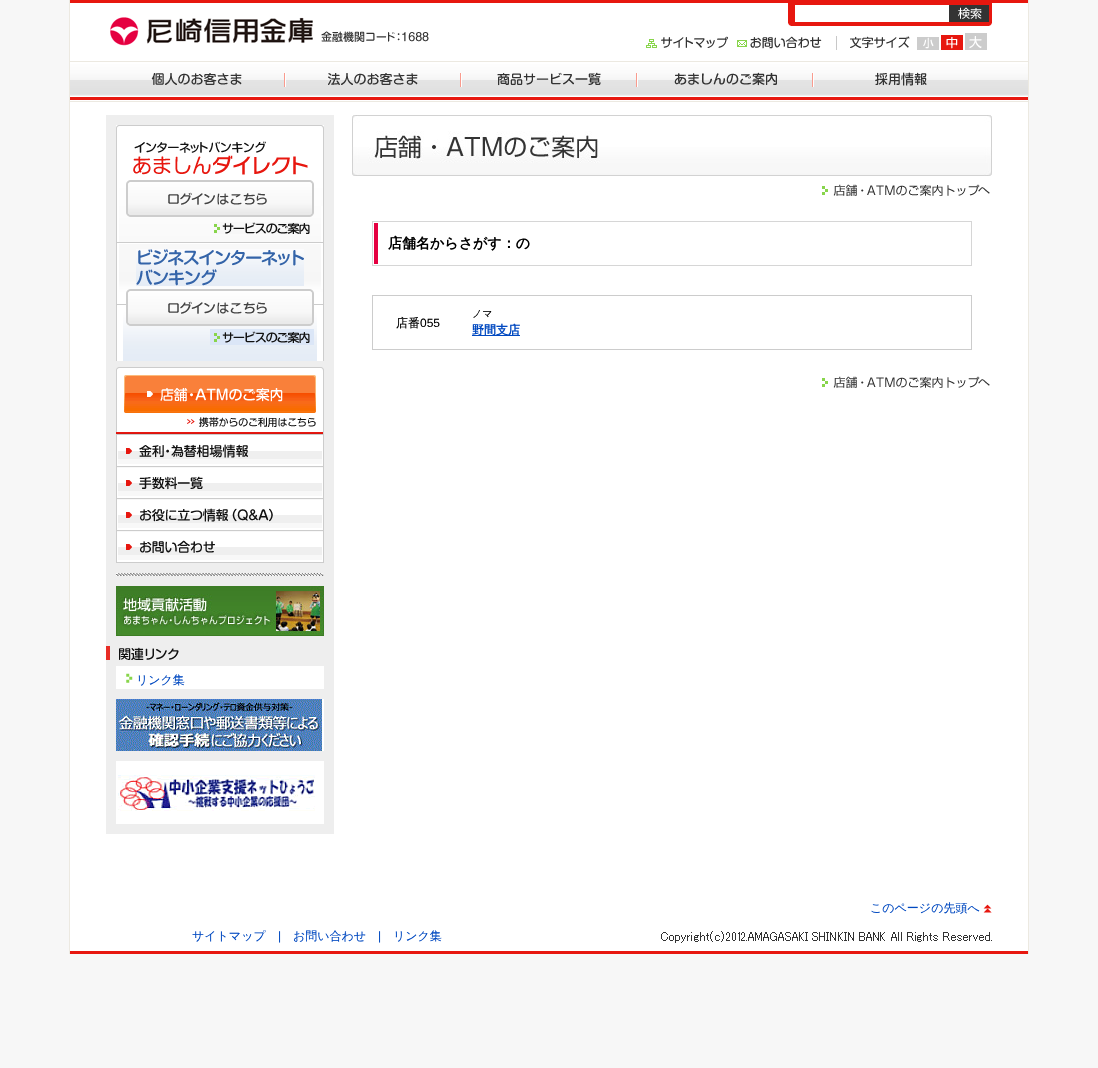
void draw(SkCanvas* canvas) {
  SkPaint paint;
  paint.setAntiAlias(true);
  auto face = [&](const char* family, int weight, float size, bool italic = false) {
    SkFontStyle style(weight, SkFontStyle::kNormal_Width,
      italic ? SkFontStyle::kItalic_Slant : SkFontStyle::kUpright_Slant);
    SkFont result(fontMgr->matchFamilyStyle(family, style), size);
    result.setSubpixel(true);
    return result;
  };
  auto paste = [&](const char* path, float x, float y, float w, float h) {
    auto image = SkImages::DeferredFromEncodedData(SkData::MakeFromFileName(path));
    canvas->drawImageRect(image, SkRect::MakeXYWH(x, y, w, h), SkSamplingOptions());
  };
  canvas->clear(0xfff7f7f7);
  {
    const struct { float x, y, w, h; SkColor color; } items[] = {
      {70, 3, 958, 948, 0xffffffff},
      {1028, 0, 1, 954, 0xffece9e1},
      {69, 0, 1, 954, 0xffece9e1},
      {70, 0, 958, 3, 0xffe7170f},
    };
    for (auto [x, y, w, h, color] : items) {
      paint.setColor(color);
      canvas->drawRect(SkRect::MakeXYWH(x, y, w, h), paint);
    }
  }
  paste("img/1.png", 788, 3, 204, 23);
  paint.setColor(0xffffffff);
  canvas->drawRect(SkRect::MakeXYWH(945, 5, 4, 17), paint);
  paste("img/2.png", 949, 5, 40, 17);
  paste("img/3.png", 110, 17, 203, 29);
  paste("img/4.png", 321, 31, 108, 11);
  paint.setColor(0xffc8c8c8);
  canvas->drawRect(SkRect::MakeXYWH(836, 36, 1, 14), paint);
  paste("img/5.png", 646, 36, 82, 12);
  paste("img/6.png", 737, 36, 85, 13);
  paste("img/7.png", 850, 36, 60, 12);
  paste("img/8.png", 917, 37, 22, 13);
  paste("img/9.png", 941, 35, 22, 15);
  paste("img/10.png", 965, 33, 22, 17);
  paste("img/11.png", 70, 61, 958, 41);
  paste("img/12.png", 352, 115, 640, 61);
  paste("img/13.png", 822, 184, 168, 12);
  paint.setStroke(true);
  paint.setStrokeWidth(1);
  paint.setColor(0xffd6d6d6);
  canvas->drawRect(SkRect::MakeXYWH(372.5f, 221.5f, 599, 44), paint);
  paint.setStroke(false);
  {
    const struct { float x, y, w, h; SkColor color; } items[] = {
      {374, 223, 4, 41, 0xffe50041},
      {372, 295, 600, 1, 0xffcccccc},
      {372, 295, 1, 55, 0xffcccccc},
      {971, 295, 1, 55, 0xffcccccc},
      {372, 349, 600, 1, 0xffcccccc},
      {472, 335, 48, 1, 0xff0149c1},
    };
    for (auto [x, y, w, h, color] : items) {
      paint.setColor(color);
      canvas->drawRect(SkRect::MakeXYWH(x, y, w, h), paint);
    }
  }
  paste("img/13.png", 822, 376, 168, 12);
  paint.setColor(0xffeeeeee);
  canvas->drawRect(SkRect::MakeXYWH(106, 115, 228, 719), paint);
  paste("img/14.png", 116, 125, 208, 236);
  paste("img/15.png", 133, 141, 175, 34);
  paste("img/16.png", 126, 180, 188, 37);
  paste("img/17.png", 214, 222, 96, 12);
  paste("img/18.png", 136, 249, 168, 37);
  paste("img/19.png", 126, 289, 188, 37);
  paste("img/20.png", 210, 329, 104, 16);
  paste("img/21.png", 116, 367, 208, 67);
  paste("img/22.png", 124, 375, 192, 38);
  paste("img/23.png", 199, 417, 117, 10);
  paste("img/24.png", 116, 434, 208, 32);
  paste("img/25.png", 116, 466, 208, 32);
  paste("img/26.png", 116, 498, 208, 32);
  paste("img/27.png", 116, 530, 208, 33);
  paste("img/28.png", 116, 573, 208, 3);
  paste("img/29.png", 116, 586, 208, 50);
  paste("img/30.png", 106, 646, 73, 14);
  paint.setColor(0xffffffff);
  canvas->drawRect(SkRect::MakeXYWH(116, 666, 208, 23), paint);
  paste("img/31.png", 126, 673, 7, 10);
  canvas->drawRect(SkRect::MakeXYWH(322, 699, 2, 52), paint);
  paste("img/32.png", 116, 699, 206, 52);
  canvas->drawRect(SkRect::MakeXYWH(116, 761, 208, 63), paint);
  paste("img/33.png", 118, 775, 197, 36);
  paint.setColor(0xffe7170f);
  canvas->drawRect(SkRect::MakeXYWH(70, 951, 958, 3), paint);
  paste("img/34.png", 983, 904, 9, 9);
  paste("img/35.png", 661, 931, 331, 12);
  auto f0 = face("WenQuanYi Zen Hei", 700, 14);
  paint.setColor(0xff000000);
  canvas->drawString("店舗名からさがす：の", 388, 248, f0, paint);
  auto f1 = face("WenQuanYi Zen Hei", 500, 12);
  canvas->drawString("店番", 396, 327, f1, paint);
  auto f2 = face("Liberation Sans", 400, 12);
  canvas->drawString("055", 420, 327, f2, paint);
  auto f3 = face("WenQuanYi Zen Hei", 500, 10);
  canvas->drawString("ノマ", 472, 317, f3, paint);
  auto f4 = face("WenQuanYi Zen Hei", 700, 12);
  paint.setColor(0xff0149c1);
  canvas->drawString("野間支店", 472, 334, f4, paint);
  {
    const struct { const char* s; float x, y; } items[] = {
      {"リンク集", 136, 684},
      {"このページの先頭へ", 870, 912},
      {"サイトマップ", 192, 940},
    };
    for (auto [s, x, y] : items) {
      canvas->drawString(s, x, y, f1, paint);
    }
  }
  canvas->drawString("|", 278, 940, f2, paint);
  canvas->drawString("お問い合わせ", 293, 940, f1, paint);
  canvas->drawString("|", 378, 940, f2, paint);
  canvas->drawString("リンク集", 393, 940, f1, paint);
}
